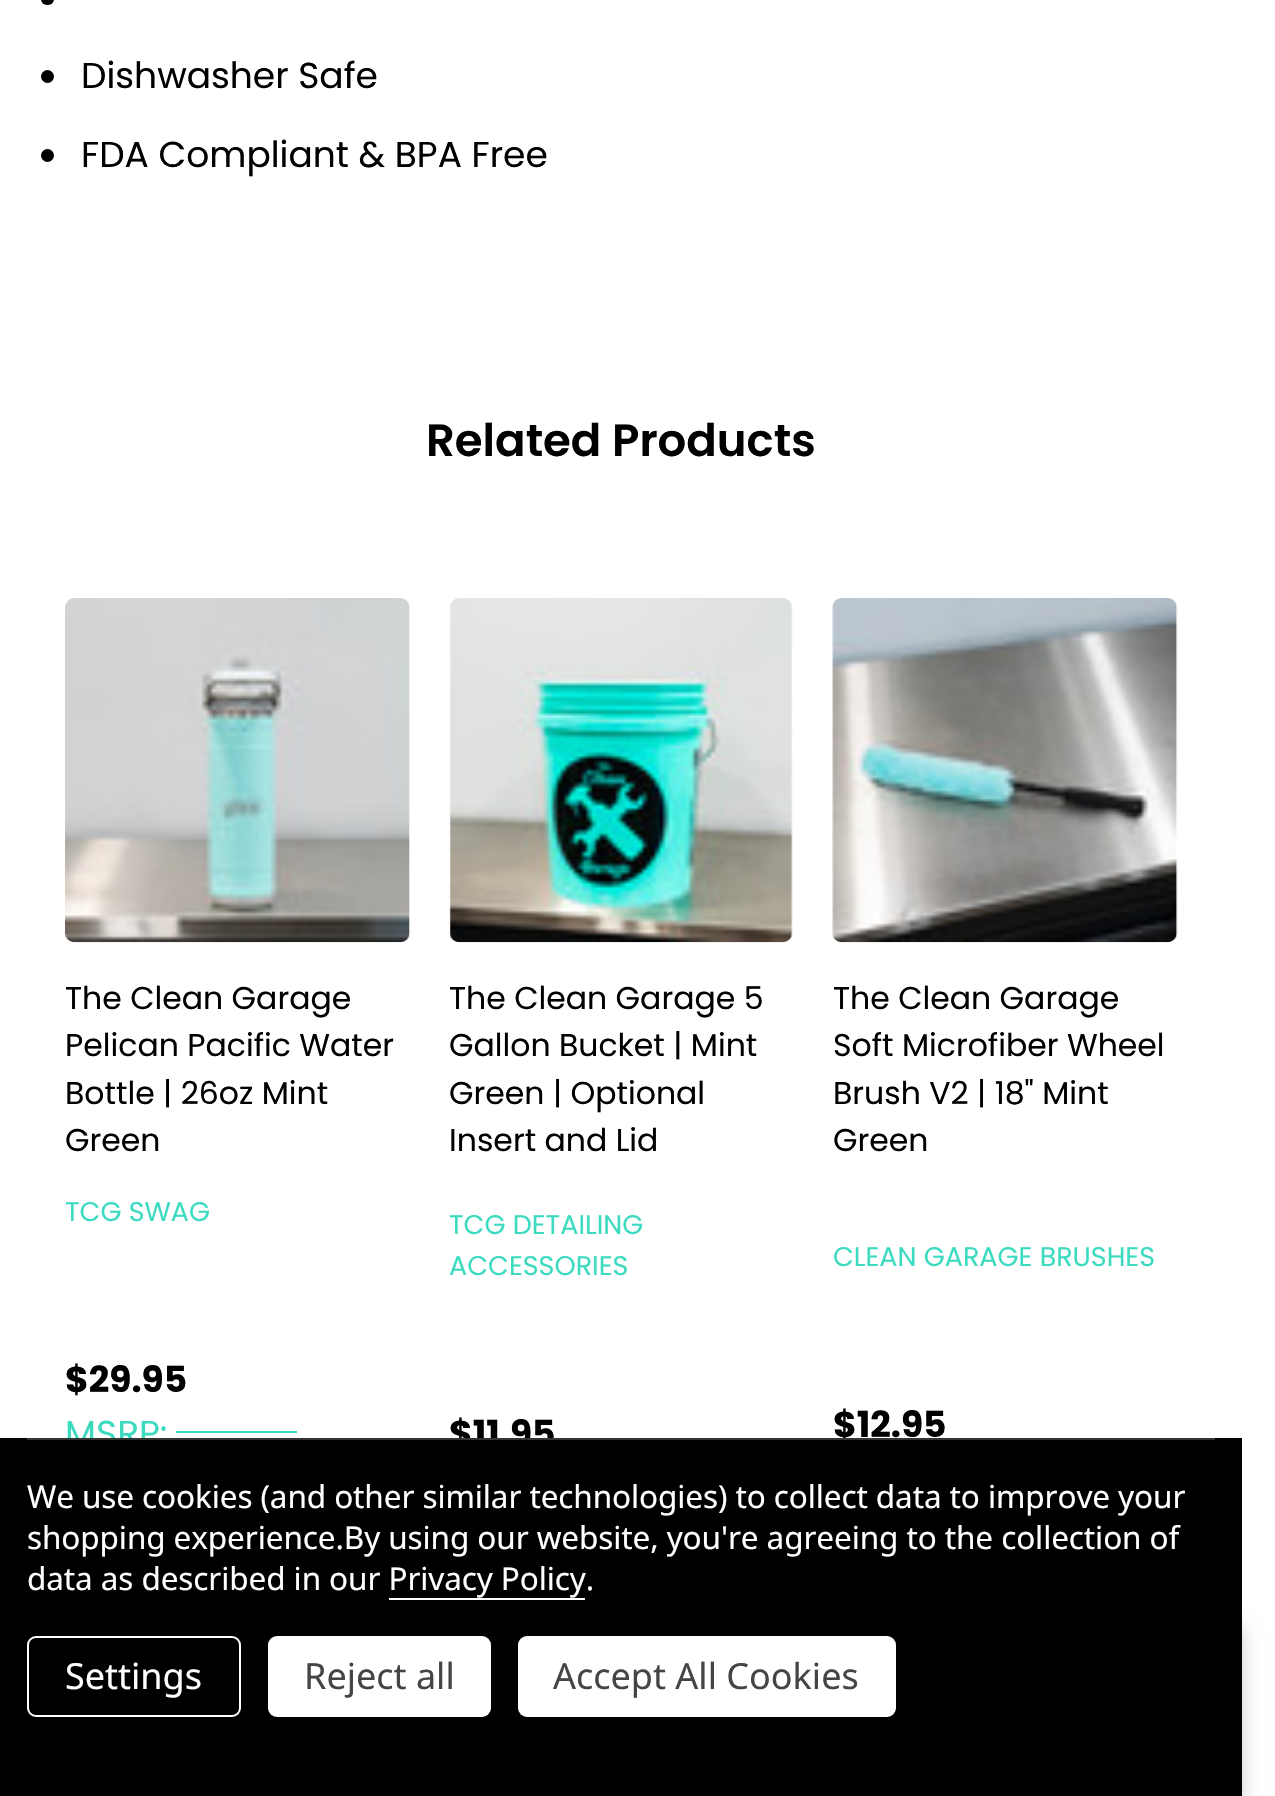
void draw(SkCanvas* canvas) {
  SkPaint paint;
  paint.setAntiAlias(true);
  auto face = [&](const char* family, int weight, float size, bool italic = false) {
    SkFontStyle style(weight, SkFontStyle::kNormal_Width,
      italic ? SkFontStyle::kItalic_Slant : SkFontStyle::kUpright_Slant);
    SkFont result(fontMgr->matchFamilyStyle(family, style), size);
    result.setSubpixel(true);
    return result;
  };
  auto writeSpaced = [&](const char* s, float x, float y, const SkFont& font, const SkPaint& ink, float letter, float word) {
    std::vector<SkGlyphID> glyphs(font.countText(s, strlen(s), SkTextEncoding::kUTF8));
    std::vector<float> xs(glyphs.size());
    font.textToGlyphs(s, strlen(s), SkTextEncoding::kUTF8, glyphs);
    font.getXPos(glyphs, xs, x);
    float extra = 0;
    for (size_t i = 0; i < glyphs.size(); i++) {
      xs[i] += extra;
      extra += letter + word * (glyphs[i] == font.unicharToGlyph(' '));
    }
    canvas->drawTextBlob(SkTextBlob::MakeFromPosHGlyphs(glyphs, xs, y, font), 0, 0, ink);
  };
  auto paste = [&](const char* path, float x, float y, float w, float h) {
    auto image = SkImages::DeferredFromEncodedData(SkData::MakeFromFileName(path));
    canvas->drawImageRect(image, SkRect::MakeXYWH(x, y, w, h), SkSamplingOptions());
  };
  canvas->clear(0xffffffff);
  paint.setColor(0xff000000);
  canvas->drawRoundRect(SkRect::MakeXYWH(41, -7, 13, 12), 6.5f, 6.5f, paint);
  canvas->drawCircle(47.5f, 76.5f, 6.5f, paint);
  canvas->drawCircle(47.5f, 155.5f, 6.5f, paint);
  paint.setColor(0x33000000);
  paint.setMaskFilter(SkMaskFilter::MakeBlur(kNormal_SkBlurStyle, 9));
  canvas->drawRect(SkRect::MakeXYWH(0, 1627, 1242, 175), paint);
  paint.setMaskFilter(nullptr);
  paste("img/1.png", 65, 598, 345, 345);
  paint.setColor(0xff3cdbc0);
  canvas->drawRect(SkRect::MakeXYWH(176, 1431, 121, 2), paint);
  paste("img/2.png", 449, 598, 344, 345);
  paste("img/3.png", 832, 598, 346, 345);
  auto f0 = face("Poppins", 400, 36);
  paint.setColor(0xff000000);
  canvas->drawString("Dishwasher Safe", 81, 88, f0, paint);
  canvas->drawString("FDA Compliant & BPA Free", 81, 167, f0, paint);
  auto f1 = face("Poppins", 600, 45);
  canvas->drawString("Related Products", 426, 456, f1, paint);
  auto f2 = face("Poppins", 400, 31.5f);
  {
    const struct { const char* s; float x, y; } items[] = {
      {"The Clean Garage", 65, 1009},
      {"Pelican Pacific Water", 65, 1056},
      {"Bottle | 26oz Mint", 65, 1104},
      {"Green", 65, 1151},
    };
    for (auto [s, x, y] : items) {
      canvas->drawString(s, x, y, f2, paint);
    }
  }
  auto f3 = face("Poppins", 400, 27);
  paint.setColor(0xff3cdbc0);
  canvas->drawString("TCG SWAG", 65, 1221, f3, paint);
  auto f4 = face("Poppins", 700, 36);
  paint.setColor(0xff000000);
  canvas->drawString("$29.95", 65, 1392, f4, paint);
  paint.setColor(0xff3cdbc0);
  canvas->drawString("MSRP:", 65, 1446, f0, paint);
  paint.setColor(0xff000000);
  {
    const struct { const char* s; float x, y; } items[] = {
      {"The Clean Garage 5", 449, 1009},
      {"Gallon Bucket | Mint", 449, 1056},
      {"Green | Optional", 449, 1104},
      {"Insert and Lid", 449, 1151},
    };
    for (auto [s, x, y] : items) {
      canvas->drawString(s, x, y, f2, paint);
    }
  }
  paint.setColor(0xff3cdbc0);
  canvas->drawString("TCG DETAILING", 449, 1234, f3, paint);
  canvas->drawString("ACCESSORIES", 449, 1275, f3, paint);
  paint.setColor(0xff000000);
  canvas->drawString("$11.95", 449, 1446, f4, paint);
  {
    const struct { const char* s; float x, y; } items[] = {
      {"The Clean Garage", 833, 1009},
      {"Soft Microfiber Wheel", 833, 1056},
      {"Brush V2 | 18\" Mint", 833, 1104},
      {"Green", 833, 1151},
    };
    for (auto [s, x, y] : items) {
      canvas->drawString(s, x, y, f2, paint);
    }
  }
  paint.setColor(0xff3cdbc0);
  canvas->drawString("CLEAN GARAGE BRUSHES", 833, 1266, f3, paint);
  paint.setColor(0xff000000);
  canvas->drawString("$12.95", 833, 1437, f4, paint);
  canvas->drawRect(SkRect::MakeXYWH(0, 1438, 1242, 358), paint);
  paint.setColor(0xff333333);
  canvas->drawRect(SkRect::MakeXYWH(27, 1438, 1188, 2), paint);
  auto f5 = face("Noto Sans", 400, 31.5f);
  paint.setColor(0xffffffff);
  {
    const struct { const char* s; float x, y; } items[] = {
      {"We use cookies (and other similar technologies) to collect data to improve your", 27, 1508},
      {"shopping experience.By using our website, you're agreeing to the collection of", 27, 1549},
      {"data as described in our Privacy Policy.", 27, 1590},
    };
    for (auto [s, x, y] : items) {
      writeSpaced(s, x, y, f5, paint, -0.1f, 0);
    }
  }
  canvas->drawRect(SkRect::MakeXYWH(389, 1598, 196, 2), paint);
  paint.setStroke(true);
  paint.setStrokeWidth(2);
  canvas->drawRoundRect(SkRect::MakeXYWH(28, 1637, 212, 79), 8, 8, paint);
  auto f6 = face("Noto Sans", 400, 36);
  paint.setStroke(false);
  canvas->drawString("Settings", 65, 1689, f6, paint);
  canvas->drawRoundRect(SkRect::MakeXYWH(268, 1636, 223, 81), 9, 9, paint);
  paint.setColor(0xff454545);
  canvas->drawString("Reject all", 304, 1689, f6, paint);
  paint.setColor(0xffffffff);
  canvas->drawRoundRect(SkRect::MakeXYWH(518, 1636, 378, 81), 9, 9, paint);
  paint.setColor(0xff454545);
  canvas->drawString("Accept All Cookies", 553, 1689, f6, paint);
}
